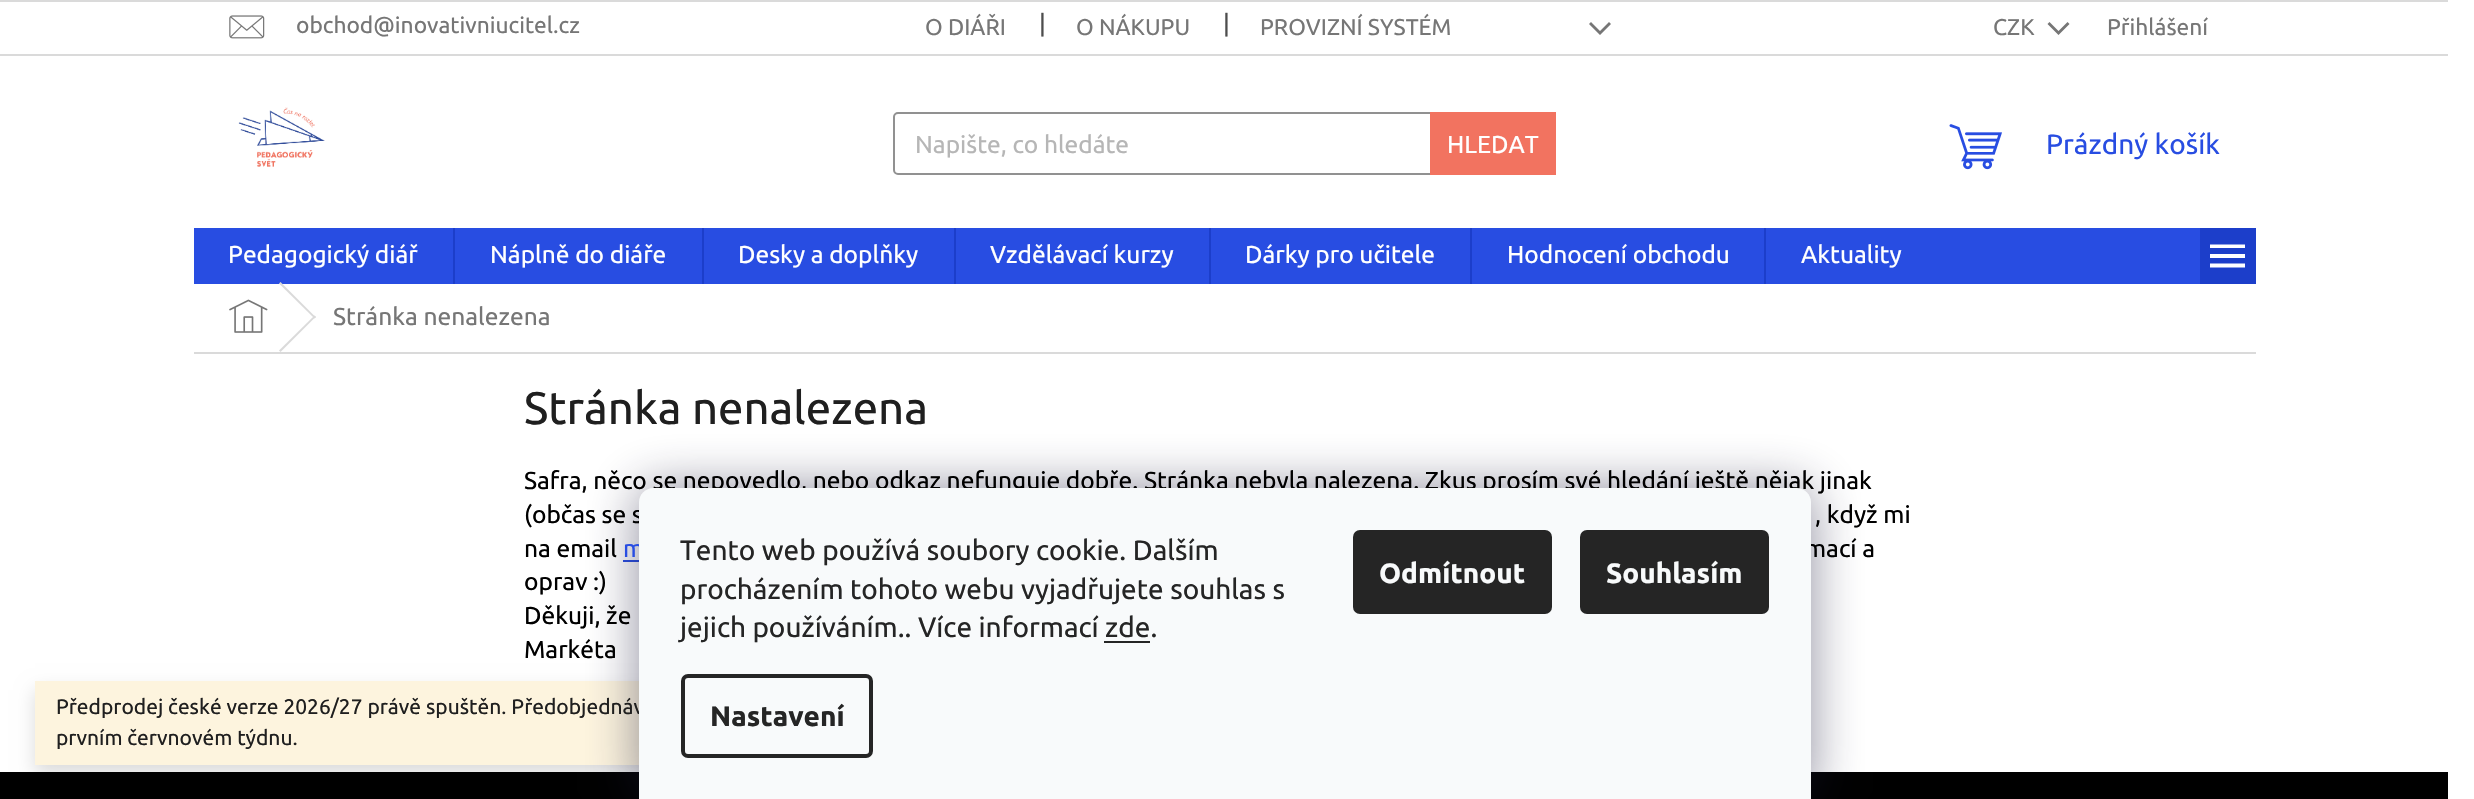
void draw(SkCanvas* canvas) {
  SkPaint paint;
  paint.setAntiAlias(true);
  auto face = [&](const char* family, int weight, float size, bool italic = false) {
    SkFontStyle style(weight, SkFontStyle::kNormal_Width,
      italic ? SkFontStyle::kItalic_Slant : SkFontStyle::kUpright_Slant);
    SkFont result(fontMgr->matchFamilyStyle(family, style), size);
    result.setSubpixel(true);
    return result;
  };
  auto paste = [&](const char* path, float x, float y, float w, float h) {
    auto image = SkImages::DeferredFromEncodedData(SkData::MakeFromFileName(path));
    canvas->drawImageRect(image, SkRect::MakeXYWH(x, y, w, h), SkSamplingOptions());
  };
  auto shape = [&](const char* data, bool evenOdd = false) {
    SkPath result = *SkParsePath::FromSVGString(data);
    if (evenOdd) result.setFillType(SkPathFillType::kEvenOdd);
    return result;
  };
  canvas->clear(0xffffffff);
  paint.setColor(0xffdadada);
  canvas->drawRect(SkRect::MakeXYWH(0, 0, 2448, 2), paint);
  canvas->drawRect(SkRect::MakeXYWH(0, 54, 2448, 2), paint);
  paste("img/1.png", 229, 15, 36, 24);
  paint.setColor(0xff767676);
  canvas->drawPath(shape("M1589 24L1591 22L1600 31L1609 22L1611 24L1600 35Z"), paint);
  canvas->drawPath(shape("M2047.5 24L2049.5 22L2058.5 31L2067.5 22L2069.5 24L2058.5 35Z"), paint);
  paste("img/2.png", 238, 107, 87, 60);
  paint.setStroke(true);
  paint.setStrokeWidth(2);
  paint.setColor(0xff919191);
  canvas->drawRoundRect(SkRect::MakeXYWH(894, 113, 661, 61), 4, 4, paint);
  paint.setStroke(false);
  paint.setColor(0xfff27360);
  canvas->drawRect(SkRect::MakeXYWH(1430, 112, 126, 63), paint);
  paste("img/3.png", 1949, 124, 53, 46);
  {
    const struct { float x, y, w, h; SkColor color; } items[] = {
      {194, 228, 2006, 56, 0xff284de2},
      {453, 228, 2, 56, 0xff1c3eca},
      {702, 228, 2, 56, 0xff1c3eca},
      {954, 228, 2, 56, 0xff1c3eca},
      {1209, 228, 2, 56, 0xff1c3eca},
      {1470, 228, 2, 56, 0xff1c3eca},
      {1764, 228, 2, 56, 0xff1c3eca},
      {2200, 228, 56, 56, 0xff1c3eca},
    };
    for (auto [x, y, w, h, color] : items) {
      paint.setColor(color);
      canvas->drawRect(SkRect::MakeXYWH(x, y, w, h), paint);
    }
  }
  paint.setColor(0xffffffff);
  canvas->drawPath(shape("M2210 267.5H2245V263.5H2210ZM2210 258H2245V254H2210ZM2210 244.5V248H2245V244.5Z"), paint);
  paint.setColor(0xffdadada);
  canvas->drawRect(SkRect::MakeXYWH(194, 352, 2062, 2), paint);
  paste("img/4.png", 229, 299, 39, 34);
  canvas->drawPath(shape("M279 283.5L280.5 282L316 317.5L314.5 318.5Z"), paint);
  canvas->drawPath(shape("M314.5 315.5L316 316.5L280.5 352L279 350.5Z"), paint);
  paint.setColor(0xff284de2);
  canvas->drawRect(SkRect::MakeXYWH(623, 560, 16, 2), paint);
  paint.setColor(0xff000000);
  canvas->drawRect(SkRect::MakeXYWH(0, 772, 639, 27), paint);
  paint.setColor(0x24000000);
  paint.setMaskFilter(SkMaskFilter::MakeBlur(kNormal_SkBlurStyle, 9));
  canvas->drawRect(SkRect::MakeXYWH(35, 690, 840, 84), paint);
  paint.setMaskFilter(nullptr);
  paint.setColor(0xfffdf4de);
  canvas->drawRect(SkRect::MakeXYWH(35, 681, 604, 84), paint);
  paint.setColor(0xff000000);
  canvas->drawRect(SkRect::MakeXYWH(1811, 772, 637, 27), paint);
  paint.setColor(0x801b1939);
  paint.setMaskFilter(SkMaskFilter::MakeBlur(kNormal_SkBlurStyle, 26));
  canvas->drawRoundRect(SkRect::MakeXYWH(639, 488, 1172, 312), 14, 14, paint);
  paint.setMaskFilter(nullptr);
  auto f0 = face("Ubuntu", 400, 22.75f);
  paint.setColor(0xff767676);
  canvas->drawString("obchod@inovativniucitel.cz", 296, 33, f0, paint);
  canvas->drawString("O DIÁŘI", 925, 35, f0, paint);
  auto f1 = face("Ubuntu", 400, 24.5f);
  paint.setColor(0xff4d4d4d);
  canvas->drawString("|", 1039, 32, f1, paint);
  paint.setColor(0xff767676);
  canvas->drawString("O NÁKUPU", 1076, 35, f0, paint);
  paint.setColor(0xff4d4d4d);
  canvas->drawString("|", 1223, 32, f1, paint);
  paint.setColor(0xff767676);
  {
    const struct { const char* s; float x, y; } items[] = {
      {"PROVIZNÍ SYSTÉM", 1260, 35},
      {"CZK", 1993, 35},
      {"Přihlášení", 2107, 35},
    };
    for (auto [s, x, y] : items) {
      canvas->drawString(s, x, y, f0, paint);
    }
  }
  paint.setColor(0xffb6b6b6);
  canvas->drawString("Napište, co hledáte", 915, 153, f1, paint);
  paint.setColor(0xffffffff);
  canvas->drawString("HLEDAT", 1447, 153, f1, paint);
  auto f2 = face("Ubuntu", 400, 28);
  paint.setColor(0xff284de2);
  canvas->drawString("Prázdný košík", 2046, 154, f2, paint);
  paint.setColor(0xffffffff);
  {
    const struct { const char* s; float x, y; } items[] = {
      {"Pedagogický diář", 228, 263},
      {"Náplně do diáře", 490, 263},
      {"Desky a doplňky", 738, 263},
      {"Vzdělávací kurzy", 990, 263},
      {"Dárky pro učitele", 1245, 263},
      {"Hodnocení obchodu", 1507, 263},
      {"Aktuality", 1801, 263},
    };
    for (auto [s, x, y] : items) {
      canvas->drawString(s, x, y, f1, paint);
    }
  }
  paint.setColor(0xff767676);
  canvas->drawString("Stránka nenalezena", 333, 325, f1, paint);
  auto f3 = face("Ubuntu", 400, 45.5f);
  paint.setColor(0xff1f1f1f);
  canvas->drawString("Stránka nenalezena", 524, 424, f3, paint);
  paint.setColor(0xff000000);
  {
    const struct { const char* s; float x, y; } items[] = {
      {"Safra, něco se nepovedlo, nebo odkaz nefunguje dobře. Stránka nebyla nalezena. Zkus prosím své hledání ještě nějak jinak", 524, 489},
      {"(občas se s", 524, 523},
      {", když mi", 1815, 523},
      {"na email", 524, 557},
    };
    for (auto [s, x, y] : items) {
      canvas->drawString(s, x, y, f1, paint);
    }
  }
  paint.setColor(0xff284de2);
  canvas->drawString("m", 623, 557, f1, paint);
  paint.setColor(0xff000000);
  {
    const struct { const char* s; float x, y; } items[] = {
      {"mací a", 1805, 557},
      {"oprav :)", 524, 590},
      {"Děkuji, že", 524, 624},
      {"Markéta", 524, 658},
    };
    for (auto [s, x, y] : items) {
      canvas->drawString(s, x, y, f1, paint);
    }
  }
  auto f4 = face("Ubuntu", 400, 21);
  paint.setColor(0xff1f1f1f);
  canvas->drawString("Předprodej české verze 2026/27 právě spuštěn. Předobjednáv", 56, 714, f4, paint);
  canvas->drawString("prvním červnovém týdnu.", 56, 745, f4, paint);
  paint.setColor(0xfff8fafb);
  canvas->drawPath(shape("M653 488H1797C1804.5 488 1811 494.5 1811 502V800H639V502C639 494.5 645.5 488 653 488Z"), paint);
  paint.setColor(0xff252525);
  {
    const struct { const char* s; float x, y; } items[] = {
      {"Tento web používá soubory cookie. Dalším", 680, 560},
      {"procházením tohoto webu vyjadřujete souhlas s", 680, 599},
      {"jejich používáním.. Více informací zde.", 680, 637},
    };
    for (auto [s, x, y] : items) {
      canvas->drawString(s, x, y, f2, paint);
    }
  }
  canvas->drawRect(SkRect::MakeXYWH(1104, 641, 46, 2), paint);
  paint.setStroke(true);
  paint.setStrokeWidth(4);
  canvas->drawRoundRect(SkRect::MakeXYWH(683, 676, 188, 80), 5, 5, paint);
  auto f5 = face("Ubuntu", 700, 28);
  paint.setStroke(false);
  canvas->drawString("Nastavení", 710, 726, f5, paint);
  canvas->drawRoundRect(SkRect::MakeXYWH(1353, 530, 199, 84), 7, 7, paint);
  paint.setColor(0xfff8fafb);
  canvas->drawString("Odmítnout", 1379, 583, f5, paint);
  paint.setColor(0xff252525);
  canvas->drawRoundRect(SkRect::MakeXYWH(1580, 530, 189, 84), 7, 7, paint);
  paint.setColor(0xfff8fafb);
  canvas->drawString("Souhlasím", 1606, 583, f5, paint);
}
